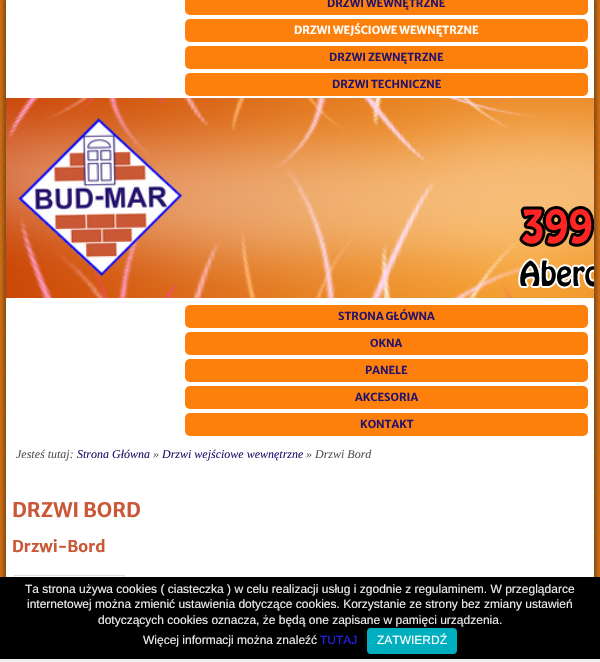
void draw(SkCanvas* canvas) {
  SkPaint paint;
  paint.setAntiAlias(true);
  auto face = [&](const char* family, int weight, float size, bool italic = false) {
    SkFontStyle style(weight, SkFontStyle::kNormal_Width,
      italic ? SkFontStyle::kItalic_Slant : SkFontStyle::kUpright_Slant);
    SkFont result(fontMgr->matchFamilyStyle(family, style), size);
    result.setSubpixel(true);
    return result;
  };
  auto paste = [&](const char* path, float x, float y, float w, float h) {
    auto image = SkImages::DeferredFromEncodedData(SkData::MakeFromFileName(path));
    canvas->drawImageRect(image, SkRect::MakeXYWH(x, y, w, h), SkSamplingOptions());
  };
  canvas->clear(0xffffffff);
  paste("img/1.png", 0, 0, 600, 577);
  paint.setColor(0xff111111);
  paint.setMaskFilter(SkMaskFilter::MakeBlur(kNormal_SkBlurStyle, 6.5f));
  canvas->drawRoundRect(SkRect::MakeXYWH(6, -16, 588, 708), 10, 10, paint);
  paint.setMaskFilter(nullptr);
  paint.setColor(0xffffffff);
  canvas->drawRect(SkRect::MakeXYWH(6, 0, 588, 577), paint);
  paint.setColor(0xfffd800d);
  canvas->drawRoundRect(SkRect::MakeXYWH(185, -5, 403, 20), 5, 5, paint);
  canvas->drawRoundRect(SkRect::MakeXYWH(185, 19, 403, 23), 5, 5, paint);
  canvas->drawRoundRect(SkRect::MakeXYWH(185, 46, 403, 23), 5, 5, paint);
  canvas->drawRoundRect(SkRect::MakeXYWH(185, 73, 403, 23), 5, 5, paint);
  paste("img/2.png", 6, 98, 588, 200);
  paste("img/3.png", 18, 118, 164, 158);
  canvas->drawRoundRect(SkRect::MakeXYWH(185, 305, 403, 23), 5, 5, paint);
  canvas->drawRoundRect(SkRect::MakeXYWH(185, 332, 403, 23), 5, 5, paint);
  canvas->drawRoundRect(SkRect::MakeXYWH(185, 359, 403, 23), 5, 5, paint);
  canvas->drawRoundRect(SkRect::MakeXYWH(185, 386, 403, 23), 5, 5, paint);
  canvas->drawRoundRect(SkRect::MakeXYWH(185, 413, 403, 23), 5, 5, paint);
  paint.setStroke(true);
  paint.setStrokeWidth(1);
  paint.setColor(0xffdddddd);
  canvas->drawRect(SkRect::MakeXYWH(14.5f, 575.5f, 110, 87), paint);
  paint.setStroke(false);
  paint.setColor(0xff000000);
  canvas->drawRect(SkRect::MakeXYWH(0, 577, 600, 82), paint);
  paint.setColor(0xffeeeeee);
  canvas->drawRect(SkRect::MakeXYWH(0, 659, 600, 3), paint);
  paint.setColor(0xff00afbf);
  canvas->drawRoundRect(SkRect::MakeXYWH(367, 628, 90, 26), 4, 4, paint);
  auto f0 = face("Merriweather Sans", 700, 11);
  paint.setColor(0xff24126c);
  canvas->drawString("DRZWI WEWNĘTRZNE", 327, 7, f0, paint);
  paint.setColor(0xffffffff);
  canvas->drawString("DRZWI WEJŚCIOWE WEWNĘTRZNE", 294, 34, f0, paint);
  paint.setColor(0xff24126c);
  {
    const struct { const char* s; float x, y; } items[] = {
      {"DRZWI ZEWNĘTRZNE", 329, 61},
      {"DRZWI TECHNICZNE", 332, 88},
      {"STRONA GŁÓWNA", 338, 320},
      {"OKNA", 370, 347},
      {"PANELE", 365, 374},
      {"AKCESORIA", 355, 401},
      {"KONTAKT", 360, 428},
    };
    for (auto [s, x, y] : items) {
      canvas->drawString(s, x, y, f0, paint);
    }
  }
  auto f1 = face("Liberation Serif", 400, 12, true);
  paint.setColor(0xff555555);
  canvas->drawString("Jesteś tutaj:", 16, 458, f1, paint);
  paint.setColor(0xff24126c);
  canvas->drawString("Strona Główna", 77, 458, f1, paint);
  paint.setColor(0xff555555);
  canvas->drawString("»", 153, 458, f1, paint);
  paint.setColor(0xff24126c);
  canvas->drawString("Drzwi wejściowe wewnętrzne", 162, 458, f1, paint);
  paint.setColor(0xff555555);
  canvas->drawString("» Drzwi Bord", 306, 458, f1, paint);
  auto f2 = face("Merriweather Sans", 700, 20);
  paint.setColor(0xffca5836);
  canvas->drawString("DRZWI BORD", 12, 517, f2, paint);
  auto f3 = face("Merriweather Sans", 700, 16);
  canvas->drawString("Drzwi-Bord", 12, 552, f3, paint);
  auto f4 = face("Liberation Sans", 400, 12);
  paint.setColor(0xffeeeeee);
  {
    const struct { const char* s; float x, y; } items[] = {
      {"Ta strona używa cookies ( ciasteczka ) w celu realizacji usług i zgodnie z regulaminem. W przeglądarce", 25, 593},
      {"internetowej można zmienić ustawienia dotyczące cookies. Korzystanie ze strony bez zmiany ustawień", 27, 608},
      {"dotyczących cookies oznacza, że będą one zapisane w pamięci urządzenia.", 98, 624},
      {"Więcej informacji można znaleźć", 143, 644},
    };
    for (auto [s, x, y] : items) {
      canvas->drawString(s, x, y, f4, paint);
    }
  }
  paint.setColor(0xff2222ff);
  canvas->drawString("TUTAJ", 320, 644, f4, paint);
  paint.setColor(0xffffffff);
  canvas->drawString("ZATWIERDŹ", 377, 644, f4, paint);
}
